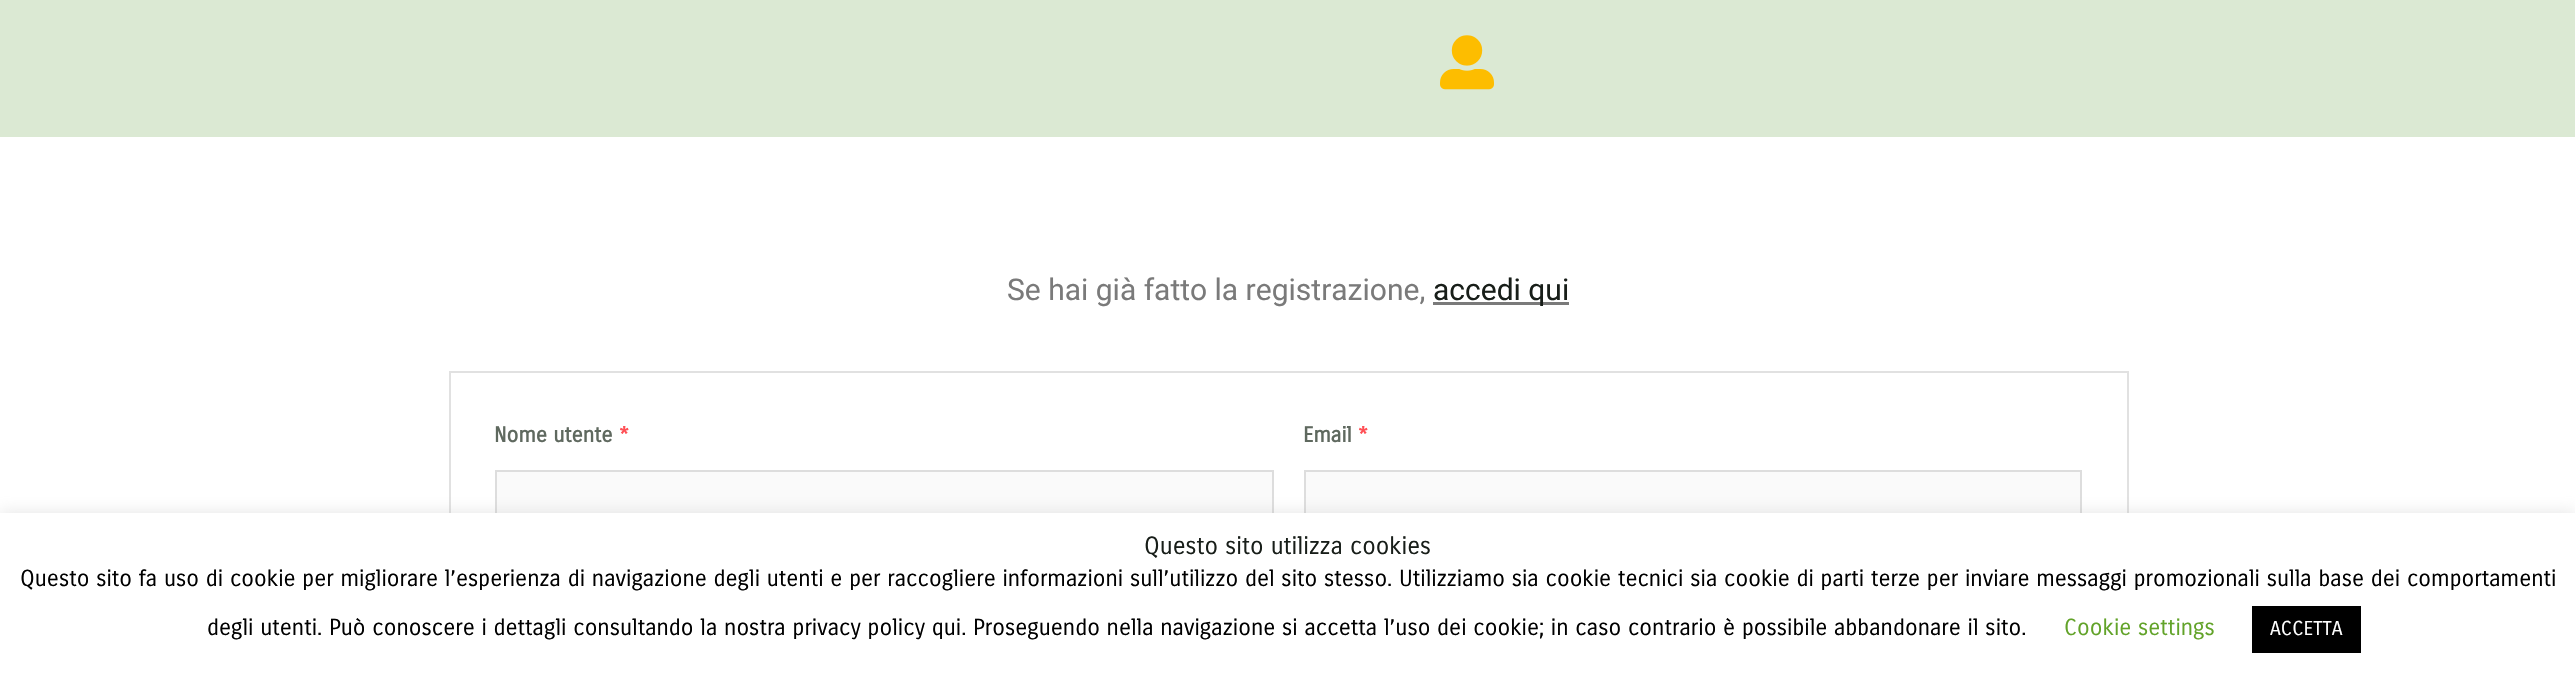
void draw(SkCanvas* canvas) {
  SkPaint paint;
  paint.setAntiAlias(true);
  auto face = [&](const char* family, int weight, float size, bool italic = false) {
    SkFontStyle style(weight, SkFontStyle::kNormal_Width,
      italic ? SkFontStyle::kItalic_Slant : SkFontStyle::kUpright_Slant);
    SkFont result(fontMgr->matchFamilyStyle(family, style), size);
    result.setSubpixel(true);
    return result;
  };
  auto paste = [&](const char* path, float x, float y, float w, float h) {
    auto image = SkImages::DeferredFromEncodedData(SkData::MakeFromFileName(path));
    canvas->drawImageRect(image, SkRect::MakeXYWH(x, y, w, h), SkSamplingOptions());
  };
  canvas->clear(0xffffffff);
  paint.setColor(0xffdbe9d3);
  canvas->drawRect(SkRect::MakeXYWH(0, 0, 2575, 137), paint);
  paste("img/1.png", 1440, 35, 54, 55);
  paint.setColor(0xff7a7a7a);
  canvas->drawRect(SkRect::MakeXYWH(1433, 302, 136, 3), paint);
  paint.setStroke(true);
  paint.setStrokeWidth(2);
  paint.setColor(0xffe1e1e1);
  canvas->drawRect(SkRect::MakeXYWH(450, 372, 1678, 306), paint);
  paint.setStroke(false);
  paint.setColor(0xfffafafa);
  canvas->drawRect(SkRect::MakeXYWH(497, 472, 775, 41), paint);
  paint.setStroke(true);
  paint.setColor(0xffdddddd);
  canvas->drawRect(SkRect::MakeXYWH(496, 471, 777, 52), paint);
  paint.setStroke(false);
  paint.setColor(0xfffafafa);
  canvas->drawRect(SkRect::MakeXYWH(1306, 472, 774, 41), paint);
  paint.setStroke(true);
  paint.setColor(0xffdddddd);
  canvas->drawRect(SkRect::MakeXYWH(1305, 471, 776, 52), paint);
  paint.setStroke(false);
  paint.setColor(0x4dacabab);
  paint.setMaskFilter(SkMaskFilter::MakeBlur(kNormal_SkBlurStyle, 7.5f));
  canvas->drawRect(SkRect::MakeXYWH(0, 512, 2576, 165), paint);
  paint.setMaskFilter(nullptr);
  paint.setColor(0xffffffff);
  canvas->drawRect(SkRect::MakeXYWH(0, 513, 2575, 164), paint);
  paint.setColor(0xff000000);
  canvas->drawRect(SkRect::MakeXYWH(2252, 606, 109, 47), paint);
  auto f0 = face("Roboto", 400, 30);
  paint.setColor(0xff7a7a7a);
  canvas->drawString("Se hai già fatto la registrazione,", 1007, 300, f0, paint);
  paint.setColor(0xff181e19);
  canvas->drawString("accedi qui", 1433, 300, f0, paint);
  auto f1 = face("Carrois Gothic", 700, 21);
  paint.setColor(0xff5f695f);
  canvas->drawString("Nome utente", 494, 442, f1, paint);
  paint.setColor(0xffff4f55);
  canvas->drawString("*", 619, 442, f1, paint);
  paint.setColor(0xff5f695f);
  canvas->drawString("Email", 1303, 442, f1, paint);
  paint.setColor(0xffff4f55);
  canvas->drawString("*", 1358, 442, f1, paint);
  auto f2 = face("Carrois Gothic", 400, 24);
  paint.setColor(0xff181e19);
  canvas->drawString("Questo sito utilizza cookies", 1144, 554, f2, paint);
  auto f3 = face("Carrois Gothic", 400, 22.5f);
  paint.setColor(0xff000000);
  canvas->drawString("Questo sito fa uso di cookie per migliorare l’esperienza di navigazione degli utenti e per raccogliere informazioni sull’utilizzo del sito stesso. Utilizziamo sia cookie tecnici sia cookie di parti terze per inviare messaggi promozionali sulla base dei comportamenti", 20, 586, f3, paint);
  canvas->drawString("degli utenti. Può conoscere i dettagli consultando la nostra privacy policy qui. Proseguendo nella navigazione si accetta l’uso dei cookie; in caso contrario è possibile abbandonare il sito.", 207, 635, f3, paint);
  paint.setColor(0xff62a329);
  canvas->drawString("Cookie settings", 2064, 635, f3, paint);
  auto f4 = face("Carrois Gothic", 400, 19.5f);
  paint.setColor(0xffffffff);
  canvas->drawString("ACCETTA", 2270, 635, f4, paint);
}
